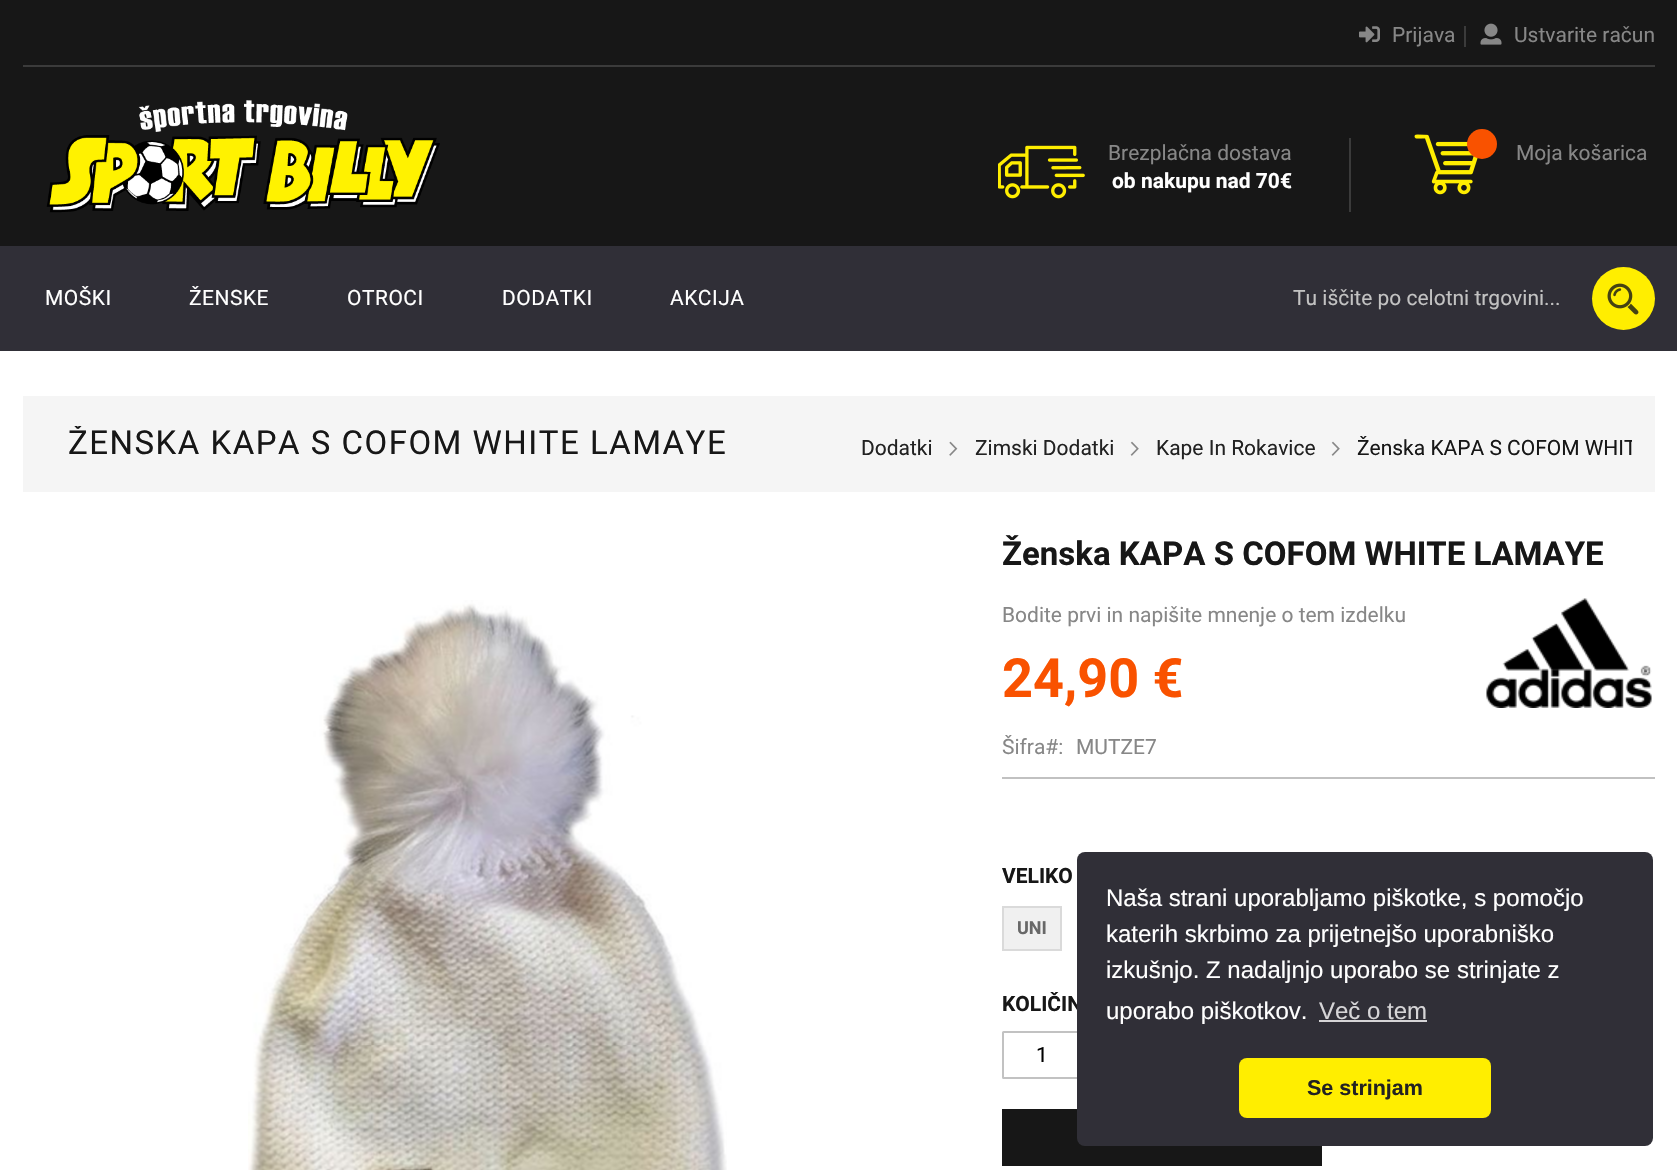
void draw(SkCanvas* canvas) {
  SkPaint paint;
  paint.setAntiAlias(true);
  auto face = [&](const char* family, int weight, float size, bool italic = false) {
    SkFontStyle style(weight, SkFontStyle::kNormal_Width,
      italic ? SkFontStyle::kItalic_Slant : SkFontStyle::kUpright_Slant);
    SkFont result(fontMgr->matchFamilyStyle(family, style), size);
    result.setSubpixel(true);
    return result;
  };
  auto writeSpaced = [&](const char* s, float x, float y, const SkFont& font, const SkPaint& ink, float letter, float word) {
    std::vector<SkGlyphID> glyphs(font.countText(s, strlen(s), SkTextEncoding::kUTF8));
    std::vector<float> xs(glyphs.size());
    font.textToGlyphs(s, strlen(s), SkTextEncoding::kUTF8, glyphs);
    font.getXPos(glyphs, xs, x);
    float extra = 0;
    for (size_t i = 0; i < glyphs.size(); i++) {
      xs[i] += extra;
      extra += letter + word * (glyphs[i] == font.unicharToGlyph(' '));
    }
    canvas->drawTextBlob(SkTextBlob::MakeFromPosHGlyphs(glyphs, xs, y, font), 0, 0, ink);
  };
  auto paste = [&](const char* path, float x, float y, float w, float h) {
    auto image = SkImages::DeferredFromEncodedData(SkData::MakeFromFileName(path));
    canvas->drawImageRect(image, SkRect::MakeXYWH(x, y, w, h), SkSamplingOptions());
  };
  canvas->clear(0xffffffff);
  paint.setColor(0xff171717);
  canvas->drawRect(SkRect::MakeXYWH(0, 0, 1677, 246), paint);
  paint.setColor(0xff3b3b3b);
  canvas->drawRect(SkRect::MakeXYWH(23, 65, 1632, 2), paint);
  paste("img/1.png", 1359, 26, 21, 17);
  canvas->drawRect(SkRect::MakeXYWH(1464, 26, 2, 21), paint);
  paste("img/2.png", 1480, 23, 22, 22);
  paste("img/3.png", 46, 100, 394, 113);
  canvas->drawRect(SkRect::MakeXYWH(1349, 138, 2, 74), paint);
  paste("img/4.png", 998, 145, 87, 54);
  paste("img/5.png", 1414, 134, 64, 61);
  paint.setColor(0xfff95200);
  canvas->drawCircle(1482, 144, 15, paint);
  paint.setColor(0xff302f37);
  canvas->drawRect(SkRect::MakeXYWH(0, 246, 1677, 105), paint);
  paint.setColor(0xffffee00);
  canvas->drawCircle(1623.5f, 298.5f, 31.5f, paint);
  paste("img/6.png", 1607, 283, 32, 32);
  paint.setColor(0xfff5f5f5);
  canvas->drawRect(SkRect::MakeXYWH(23, 396, 1632, 96), paint);
  paste("img/7.png", 949, 441, 9, 15);
  paste("img/8.png", 1130, 441, 9, 15);
  paste("img/8.png", 1331, 441, 9, 15);
  paste("img/9.png", 248, 600, 479, 570);
  paste("img/10.png", 1486, 598, 166, 110);
  paint.setColor(0xffc1c1c1);
  canvas->drawRect(SkRect::MakeXYWH(1002, 777, 653, 2), paint);
  paint.setColor(0xfff0f0f0);
  canvas->drawRect(SkRect::MakeXYWH(1003, 907, 58, 43), paint);
  paint.setStroke(true);
  paint.setStrokeWidth(2);
  paint.setColor(0xffdadada);
  canvas->drawRect(SkRect::MakeXYWH(1003, 907, 58, 43), paint);
  paint.setColor(0xffc2c2c2);
  canvas->drawRoundRect(SkRect::MakeXYWH(1003, 1032, 79, 46), 0.5f, 0.5f, paint);
  paint.setStroke(false);
  paint.setColor(0xff171717);
  canvas->drawRect(SkRect::MakeXYWH(1002, 1109, 320, 57), paint);
  auto f0 = face("Roboto", 400, 21);
  paint.setColor(0xff878787);
  {
    const struct { const char* s; float x, y; } items[] = {
      {"Prijava", 1392, 42},
      {"Ustvarite račun", 1514, 42},
      {"Brezplačna dostava", 1108, 160},
    };
    for (auto [s, x, y] : items) {
      canvas->drawString(s, x, y, f0, paint);
    }
  }
  auto f1 = face("Roboto", 700, 21);
  paint.setColor(0xffffffff);
  canvas->drawString("ob nakupu nad 70€", 1112, 188, f1, paint);
  paint.setColor(0xff878787);
  canvas->drawString("Moja košarica", 1516, 160, f0, paint);
  paint.setColor(0xffffffff);
  {
    const struct { const char* s; float x, y; } items[] = {
      {"MOŠKI", 45, 305},
      {"ŽENSKE", 189, 305},
      {"OTROCI", 347, 305},
      {"DODATKI", 502, 305},
      {"AKCIJA", 670, 305},
    };
    for (auto [s, x, y] : items) {
      writeSpaced(s, x, y, f0, paint, 0.5f, 0);
    }
  }
  paint.setColor(0xffc2c2c2);
  canvas->drawString("Tu iščite po celotni trgovini...", 1293, 305, f0, paint);
  canvas->save();
  canvas->clipRect(SkRect::MakeXYWH(23, 426, 816, 36));
  auto f2 = face("Roboto", 400, 33);
  paint.setColor(0xff171717);
  writeSpaced("ŽENSKA KAPA S COFOM WHITE LAMAYE", 68, 454, f2, paint, 1.5f, 0);
  canvas->restore();
  paint.setColor(0xff222222);
  {
    const struct { const char* s; float x, y; } items[] = {
      {"Dodatki", 861, 455},
      {"Zimski Dodatki", 975, 455},
      {"Kape In Rokavice", 1156, 455},
    };
    for (auto [s, x, y] : items) {
      canvas->drawString(s, x, y, f0, paint);
    }
  }
  canvas->save();
  canvas->clipRect(SkRect::MakeXYWH(861, 434, 771, 33));
  paint.setColor(0xff171717);
  canvas->drawString("Ženska KAPA S COFOM WHIT", 1357, 455, f0, paint);
  canvas->restore();
  auto f3 = face("Roboto", 700, 33);
  canvas->drawString("Ženska KAPA S COFOM WHITE LAMAYE", 1002, 565, f3, paint);
  paint.setColor(0xff878787);
  canvas->drawString("Bodite prvi in napišite mnenje o tem izdelku", 1002, 622, f0, paint);
  auto f4 = face("Roboto", 700, 54);
  paint.setColor(0xfff95200);
  canvas->drawString("24,90 €", 1002, 697, f4, paint);
  paint.setColor(0xff878787);
  canvas->drawString("Šifra#:", 1002, 754, f0, paint);
  canvas->drawString("MUTZE7", 1076, 754, f0, paint);
  paint.setColor(0xff171717);
  canvas->drawString("VELIKO", 1002, 883, f1, paint);
  auto f5 = face("Roboto", 700, 18);
  paint.setColor(0xff686868);
  canvas->drawString("UNI", 1017, 934, f5, paint);
  paint.setColor(0xff171717);
  canvas->drawString("KOLIČIN", 1002, 1011, f1, paint);
  paint.setColor(0xff000000);
  canvas->drawString("1", 1036, 1062, f0, paint);
  paint.setColor(0xff302f37);
  canvas->drawRoundRect(SkRect::MakeXYWH(1077, 852, 576, 294), 8, 8, paint);
  auto f6 = face("Liberation Sans", 400, 24);
  paint.setColor(0xffffffff);
  {
    const struct { const char* s; float x, y; } items[] = {
      {"Naša strani uporabljamo piškotke, s pomočjo", 1106, 906},
      {"katerih skrbimo za prijetnejšo uporabniško", 1106, 942},
      {"izkušnjo. Z nadaljnjo uporabo se strinjate z", 1106, 978},
      {"uporabo piškotkov.", 1106, 1019},
    };
    for (auto [s, x, y] : items) {
      canvas->drawString(s, x, y, f6, paint);
    }
  }
  paint.setColor(0xffd6d5d7);
  canvas->drawString("Več o tem", 1319, 1019, f6, paint);
  canvas->drawRect(SkRect::MakeXYWH(1319, 1020, 108, 2), paint);
  paint.setColor(0xffffee00);
  canvas->drawRoundRect(SkRect::MakeXYWH(1239, 1058, 252, 60), 8, 8, paint);
  auto f7 = face("Liberation Sans", 700, 21.5f);
  paint.setColor(0xff222222);
  canvas->drawString("Se strinjam", 1307, 1095, f7, paint);
}
